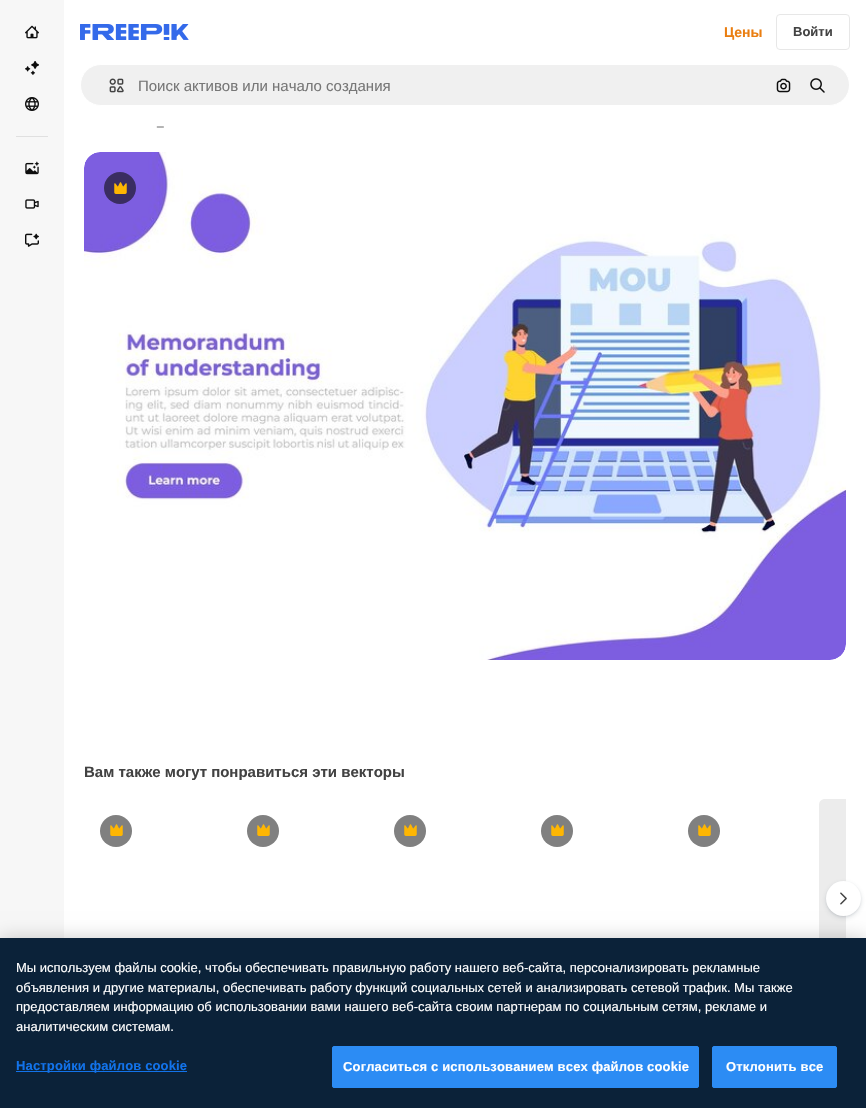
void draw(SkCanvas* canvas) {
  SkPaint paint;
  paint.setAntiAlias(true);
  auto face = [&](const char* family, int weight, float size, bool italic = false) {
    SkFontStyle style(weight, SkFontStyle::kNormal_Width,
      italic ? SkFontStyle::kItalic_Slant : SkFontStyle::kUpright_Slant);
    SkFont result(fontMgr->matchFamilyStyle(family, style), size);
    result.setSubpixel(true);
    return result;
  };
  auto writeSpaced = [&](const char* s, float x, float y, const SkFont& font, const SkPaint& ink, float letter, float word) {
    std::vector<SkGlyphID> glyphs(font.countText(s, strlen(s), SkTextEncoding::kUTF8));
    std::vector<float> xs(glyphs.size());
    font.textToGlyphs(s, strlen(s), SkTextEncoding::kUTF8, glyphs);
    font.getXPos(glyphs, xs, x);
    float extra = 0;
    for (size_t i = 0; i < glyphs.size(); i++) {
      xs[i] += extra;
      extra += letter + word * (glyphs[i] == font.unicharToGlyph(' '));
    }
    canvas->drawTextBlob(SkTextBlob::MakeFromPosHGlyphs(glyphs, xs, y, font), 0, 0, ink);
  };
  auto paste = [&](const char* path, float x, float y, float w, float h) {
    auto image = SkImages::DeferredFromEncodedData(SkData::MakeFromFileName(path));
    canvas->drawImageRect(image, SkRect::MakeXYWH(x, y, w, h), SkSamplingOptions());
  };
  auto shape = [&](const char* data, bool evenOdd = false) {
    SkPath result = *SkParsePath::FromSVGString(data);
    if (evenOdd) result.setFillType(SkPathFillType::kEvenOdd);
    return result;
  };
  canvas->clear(0xffffffff);
  paint.setColor(0xfff7f7f7);
  canvas->drawRect(SkRect::MakeXYWH(0, 0, 64, 938), paint);
  paste("img/1.png", 25, 25, 14, 14);
  paste("img/2.png", 25, 61, 14, 14);
  paste("img/3.png", 25, 97, 14, 14);
  paint.setColor(0xffe0e0e0);
  canvas->drawRect(SkRect::MakeXYWH(16, 136, 32, 1), paint);
  paste("img/4.png", 25, 161, 14, 14);
  paste("img/5.png", 25, 199, 14, 10);
  paste("img/6.png", 25, 233, 14, 14);
  paste("img/7.png", 80, 24, 109, 16);
  paint.setStroke(true);
  paint.setStrokeWidth(1);
  paint.setColor(0xffe7e7e7);
  canvas->drawRoundRect(SkRect::MakeXYWH(776.5f, 14.5f, 73, 35), 3.5f, 3.5f, paint);
  paint.setStroke(false);
  paint.setColor(0xfff0f0f0);
  canvas->drawRoundRect(SkRect::MakeXYWH(80.5f, 64.5f, 769, 41), 20.5f, 20.5f, paint);
  paint.setStroke(true);
  paint.setColor(0xffffffff);
  canvas->drawRoundRect(SkRect::MakeXYWH(80.5f, 64.5f, 769, 41), 20.5f, 20.5f, paint);
  paste("img/8.png", 109, 78, 15, 15);
  paste("img/9.png", 776, 78, 15, 15);
  paste("img/10.png", 810, 78, 15, 15);
  paste("img/11.png", 84, 152, 762, 508);
  paint.setStroke(false);
  paint.setColor(0xff3a2d61);
  canvas->drawCircle(120, 188, 16, paint);
  paste("img/12.png", 114, 182, 13, 12);
  paint.setColor(0xff808080);
  canvas->drawCircle(116, 831, 16, paint);
  paste("img/13.png", 110, 824, 13, 12);
  canvas->drawCircle(263, 831, 16, paint);
  paste("img/13.png", 257, 824, 13, 12);
  canvas->drawCircle(410, 831, 16, paint);
  paste("img/13.png", 404, 824, 13, 12);
  canvas->drawCircle(557, 831, 16, paint);
  paste("img/13.png", 551, 824, 13, 12);
  canvas->drawCircle(704, 831, 16, paint);
  paste("img/13.png", 698, 824, 13, 12);
  {
    const SkColor colors[] = {0xffececec, 0xfff5f5f5, 0xffececec};
    const float stops[] = {0.08f, 0.18f, 0.33f};
    const SkPoint ends[] = {{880, 631}, {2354, 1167}};
    paint.setShader(SkGradientShader::MakeLinear(ends, colors, stops, 3, SkTileMode::kClamp));
    paint.setAlpha(255);
  }
  canvas->drawPath(shape("M825 799H846V999H825C821.5 999 819 996.5 819 993V805C819 801.5 821.5 799 825 799Z"), paint);
  paint.setShader(nullptr);
  paint.setColor(0x26374957);
  paint.setMaskFilter(SkMaskFilter::MakeBlur(kNormal_SkBlurStyle, 2.5f));
  canvas->drawRoundRect(SkRect::MakeXYWH(826, 883, 35, 35), 17.5f, 17.5f, paint);
  paint.setMaskFilter(nullptr);
  paint.setColor(0x1a374957);
  paint.setMaskFilter(SkMaskFilter::MakeBlur(kNormal_SkBlurStyle, 1));
  canvas->drawRoundRect(SkRect::MakeXYWH(826, 882, 35, 35), 17.5f, 17.5f, paint);
  paint.setMaskFilter(nullptr);
  paint.setColor(0xffffffff);
  canvas->drawCircle(843.5f, 898.5f, 17.5f, paint);
  paste("img/14.png", 840, 892, 7, 13);
  paint.setColor(0x33000000);
  paint.setMaskFilter(SkMaskFilter::MakeBlur(kNormal_SkBlurStyle, 9));
  canvas->drawRect(SkRect::MakeXYWH(0, 938, 866, 170), paint);
  paint.setMaskFilter(nullptr);
  paint.setColor(0xff0b2239);
  canvas->drawRect(SkRect::MakeXYWH(0, 938, 866, 170), paint);
  paint.setColor(0xff1273eb);
  canvas->drawRect(SkRect::MakeXYWH(16, 1071, 171, 1), paint);
  paint.setColor(0xff2c8cf4);
  canvas->drawRoundRect(SkRect::MakeXYWH(332.5f, 1046.5f, 366, 41), 1.5f, 1.5f, paint);
  paint.setStroke(true);
  canvas->drawRoundRect(SkRect::MakeXYWH(332.5f, 1046.5f, 366, 41), 1.5f, 1.5f, paint);
  paint.setStroke(false);
  canvas->drawRoundRect(SkRect::MakeXYWH(712.5f, 1046.5f, 124, 41), 1.5f, 1.5f, paint);
  paint.setStroke(true);
  canvas->drawRoundRect(SkRect::MakeXYWH(712.5f, 1046.5f, 124, 41), 1.5f, 1.5f, paint);
  auto f0 = face("Liberation Sans", 700, 14);
  paint.setStroke(false);
  paint.setColor(0xffea7e11);
  canvas->drawString("Цены", 724, 37, f0, paint);
  auto f1 = face("Liberation Sans", 700, 13);
  paint.setColor(0xff424242);
  canvas->drawString("Войти", 793, 36, f1, paint);
  auto f2 = face("Liberation Sans", 400, 15);
  paint.setColor(0xff777777);
  canvas->drawString("Поиск активов или начало создания", 138, 91, f2, paint);
  auto f3 = face("Liberation Sans", 400, 12);
  paint.setColor(0xff5c5c5c);
  canvas->drawString("_", 157, 125, f3, paint);
  auto f4 = face("Liberation Sans", 700, 15);
  paint.setColor(0xff424242);
  canvas->drawString("Вам также могут понравиться эти векторы", 84, 777, f4, paint);
  auto f5 = face("Liberation Sans", 400, 13);
  paint.setColor(0xffffffff);
  {
    const struct { const char* s; float x, y; } items[] = {
      {"Мы используем файлы cookie, чтобы обеспечивать правильную работу нашего веб-сайта, персонализировать рекламные", 16, 972},
      {"объявления и другие материалы, обеспечивать работу функций социальных сетей и анализировать сетевой трафик. Мы также", 16, 992},
      {"предоставляем информацию об использовании вами нашего веб-сайта своим партнерам по социальным сетям, рекламе и", 16, 1011},
      {"аналитическим системам.", 16, 1031},
    };
    for (auto [s, x, y] : items) {
      canvas->drawString(s, x, y, f5, paint);
    }
  }
  paint.setColor(0xff1273eb);
  writeSpaced("Настройки файлов cookie", 16, 1070, f1, paint, 0.15f, 0);
  paint.setColor(0xffffffff);
  writeSpaced("Согласиться с использованием всех файлов cookie", 343, 1071, f1, paint, 0.15f, 0);
  writeSpaced("Отклонить все", 726, 1071, f1, paint, 0.15f, 0);
}
